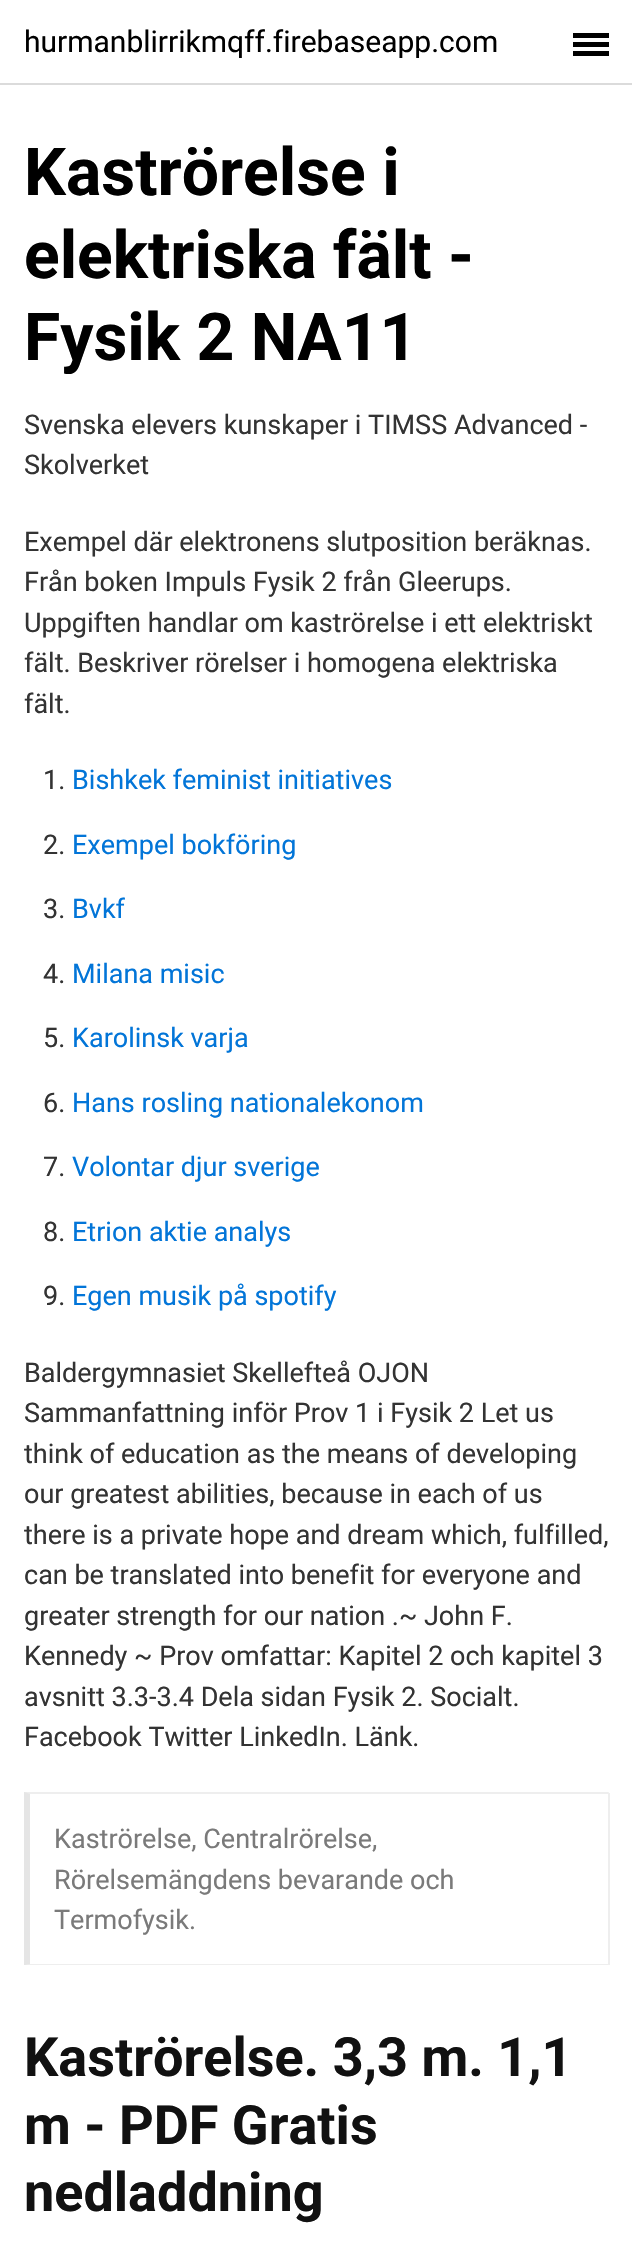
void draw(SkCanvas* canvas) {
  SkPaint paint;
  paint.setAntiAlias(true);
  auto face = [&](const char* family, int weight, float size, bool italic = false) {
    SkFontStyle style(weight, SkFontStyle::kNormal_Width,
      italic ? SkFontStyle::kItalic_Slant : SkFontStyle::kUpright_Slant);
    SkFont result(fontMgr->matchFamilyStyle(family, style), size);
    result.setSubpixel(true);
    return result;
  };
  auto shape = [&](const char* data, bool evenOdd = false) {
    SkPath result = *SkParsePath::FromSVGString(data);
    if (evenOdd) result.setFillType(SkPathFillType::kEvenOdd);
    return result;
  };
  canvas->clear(0xffffffff);
  {
    const struct { float x, y, w, h; SkColor color; } items[] = {
      {0, 83, 632, 2, 0xffdbdbdb},
      {573, 42, 36, 5, 0xff000000},
      {573, 33, 36, 5, 0xff000000},
      {573, 51, 36, 5, 0xff000000},
    };
    for (auto [x, y, w, h, color] : items) {
      paint.setColor(color);
      canvas->drawRect(SkRect::MakeXYWH(x, y, w, h), paint);
    }
  }
  paint.setColor(0xffeeeeee);
  canvas->drawPath(shape("M24 1792H609L608 1794H30Z"), paint);
  canvas->drawRect(SkRect::MakeXYWH(608, 1793, 2, 172), paint);
  canvas->drawPath(shape("M609 1965H24L30 1964H608Z"), paint);
  paint.setColor(0x1a000000);
  canvas->drawPath(shape("M24 1965V1792L30 1794V1964Z"), paint);
  auto f0 = face("Roboto", 400, 30);
  paint.setColor(0xff000000);
  canvas->drawString("hurmanblirrikmqff.firebaseapp.com", 24, 52, f0, paint);
  auto f1 = face("Roboto", 700, 66);
  {
    const struct { const char* s; float x, y; } items[] = {
      {"Kaströrelse i", 24, 195},
      {"elektriska fält -", 24, 278},
      {"Fysik 2 NA11", 24, 360},
    };
    for (auto [s, x, y] : items) {
      canvas->drawString(s, x, y, f1, paint);
    }
  }
  auto f2 = face("Roboto", 400, 27);
  paint.setColor(0xff333333);
  {
    const struct { const char* s; float x, y; } items[] = {
      {"Svenska elevers kunskaper i TIMSS Advanced -", 24, 434},
      {"Skolverket", 24, 474},
      {"Exempel där elektronens slutposition beräknas.", 24, 551},
      {"Från boken Impuls Fysik 2 från Gleerups.", 24, 591},
      {"Uppgiften handlar om kaströrelse i ett elektriskt", 24, 632},
      {"fält. Beskriver rörelser i homogena elektriska", 24, 672},
      {"fält.", 24, 713},
      {"1.", 43, 789},
    };
    for (auto [s, x, y] : items) {
      canvas->drawString(s, x, y, f2, paint);
    }
  }
  paint.setColor(0xff0275d8);
  canvas->drawString("Bishkek feminist initiatives", 72, 789, f2, paint);
  paint.setColor(0xff333333);
  canvas->drawString("2.", 43, 854, f2, paint);
  paint.setColor(0xff0275d8);
  canvas->drawString("Exempel bokföring", 72, 854, f2, paint);
  paint.setColor(0xff333333);
  canvas->drawString("3.", 43, 918, f2, paint);
  paint.setColor(0xff0275d8);
  canvas->drawString("Bvkf", 72, 918, f2, paint);
  paint.setColor(0xff333333);
  canvas->drawString("4.", 43, 983, f2, paint);
  paint.setColor(0xff0275d8);
  canvas->drawString("Milana misic", 72, 983, f2, paint);
  paint.setColor(0xff333333);
  canvas->drawString("5.", 43, 1047, f2, paint);
  paint.setColor(0xff0275d8);
  canvas->drawString("Karolinsk varja", 72, 1047, f2, paint);
  paint.setColor(0xff333333);
  canvas->drawString("6.", 43, 1112, f2, paint);
  paint.setColor(0xff0275d8);
  canvas->drawString("Hans rosling nationalekonom", 72, 1112, f2, paint);
  paint.setColor(0xff333333);
  canvas->drawString("7.", 43, 1176, f2, paint);
  paint.setColor(0xff0275d8);
  canvas->drawString("Volontar djur sverige", 72, 1176, f2, paint);
  paint.setColor(0xff333333);
  canvas->drawString("8.", 43, 1241, f2, paint);
  paint.setColor(0xff0275d8);
  canvas->drawString("Etrion aktie analys", 72, 1241, f2, paint);
  paint.setColor(0xff333333);
  canvas->drawString("9.", 43, 1305, f2, paint);
  paint.setColor(0xff0275d8);
  canvas->drawString("Egen musik på spotify", 72, 1305, f2, paint);
  paint.setColor(0xff333333);
  {
    const struct { const char* s; float x, y; } items[] = {
      {"Baldergymnasiet Skellefteå OJON", 24, 1382},
      {"Sammanfattning inför Prov 1 i Fysik 2 Let us", 24, 1422},
      {"think of education as the means of developing", 24, 1463},
      {"our greatest abilities, because in each of us", 24, 1503},
      {"there is a private hope and dream which, fulfilled,", 24, 1544},
      {"can be translated into benefit for everyone and", 24, 1584},
      {"greater strength for our nation .~ John F.", 24, 1625},
      {"Kennedy ~ Prov omfattar: Kapitel 2 och kapitel 3", 24, 1665},
      {"avsnitt 3.3-3.4 Dela sidan Fysik 2. Socialt.", 24, 1706},
      {"Facebook Twitter LinkedIn. Länk.", 24, 1746},
    };
    for (auto [s, x, y] : items) {
      canvas->drawString(s, x, y, f2, paint);
    }
  }
  paint.setColor(0xff7a7a7a);
  {
    const struct { const char* s; float x, y; } items[] = {
      {"Kaströrelse, Centralrörelse,", 54, 1848},
      {"Rörelsemängdens bevarande och", 54, 1889},
      {"Termofysik.", 54, 1929},
    };
    for (auto [s, x, y] : items) {
      canvas->drawString(s, x, y, f2, paint);
    }
  }
  auto f3 = face("Roboto", 700, 54);
  paint.setColor(0xff111111);
  {
    const struct { const char* s; float x, y; } items[] = {
      {"Kaströrelse. 3,3 m. 1,1", 24, 2076},
      {"m - PDF Gratis", 24, 2144},
      {"nedladdning", 24, 2211},
    };
    for (auto [s, x, y] : items) {
      canvas->drawString(s, x, y, f3, paint);
    }
  }
}
